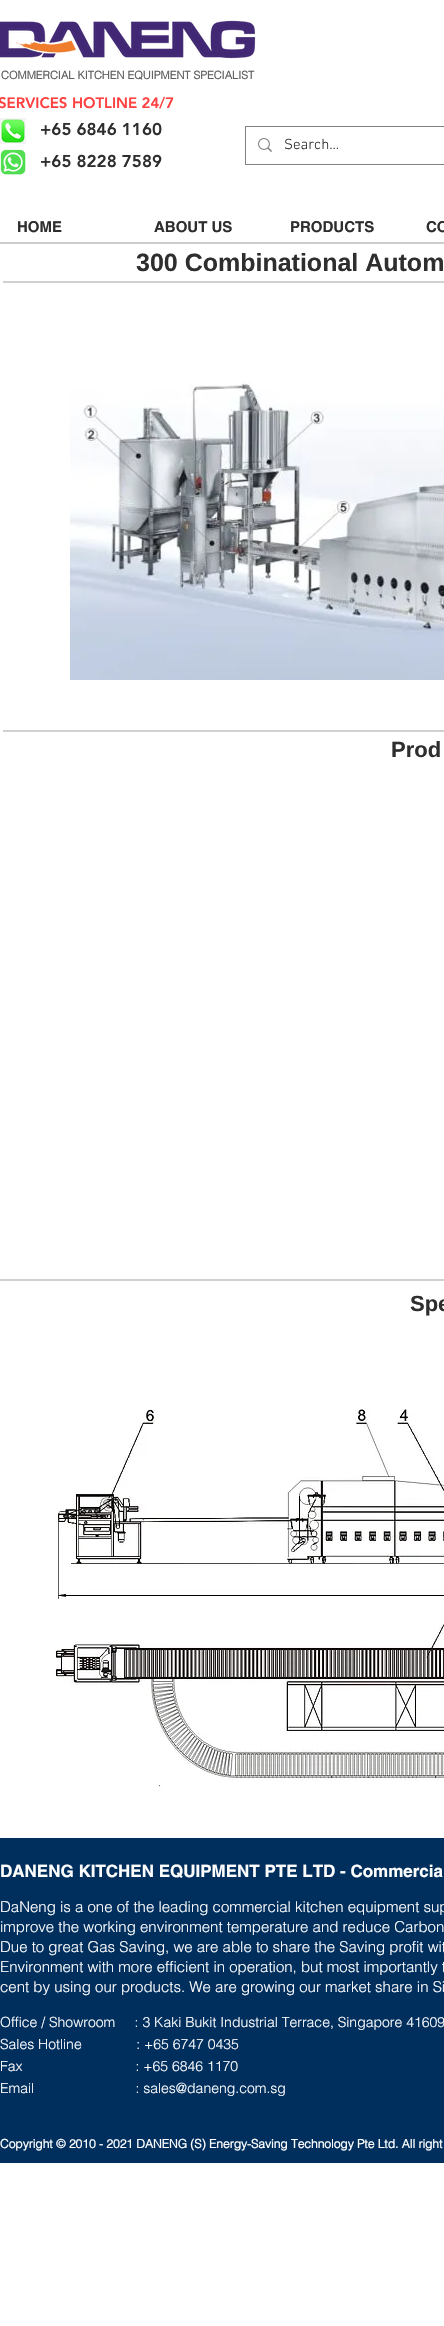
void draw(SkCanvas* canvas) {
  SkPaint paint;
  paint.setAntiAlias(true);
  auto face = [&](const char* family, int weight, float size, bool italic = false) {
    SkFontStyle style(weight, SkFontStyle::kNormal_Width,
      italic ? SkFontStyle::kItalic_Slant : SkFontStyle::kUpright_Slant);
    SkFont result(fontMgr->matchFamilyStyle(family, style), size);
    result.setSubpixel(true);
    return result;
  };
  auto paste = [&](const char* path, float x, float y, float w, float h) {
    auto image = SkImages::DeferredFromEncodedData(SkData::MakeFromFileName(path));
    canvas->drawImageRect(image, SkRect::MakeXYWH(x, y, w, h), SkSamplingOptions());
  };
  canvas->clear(0xffffffff);
  paste("img/1.png", 0, 20, 256, 39);
  paste("img/2.png", 0, 118, 26, 26);
  paint.setStroke(true);
  paint.setStrokeWidth(1);
  paint.setColor(0xff828282);
  canvas->drawRect(SkRect::MakeXYWH(245.5f, 126.5f, 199, 38), paint);
  paste("img/3.png", 258, 138, 14, 14);
  paste("img/4.png", 0, 149, 26, 26);
  paint.setStroke(false);
  paint.setColor(0xffcccccc);
  canvas->drawRect(SkRect::MakeXYWH(0, 242, 444, 2), paint);
  paint.setColor(0xffd0d0cf);
  canvas->drawRect(SkRect::MakeXYWH(3, 281, 441, 2), paint);
  paste("img/5.png", 70, 381, 374, 299);
  canvas->drawRect(SkRect::MakeXYWH(3, 730, 441, 2), paint);
  canvas->drawRect(SkRect::MakeXYWH(0, 1279, 444, 2), paint);
  paste("img/6.png", 55, 1409, 389, 378);
  paint.setColor(0xff002e5d);
  canvas->drawRect(SkRect::MakeXYWH(0, 1838, 444, 325), paint);
  auto f0 = face("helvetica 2", 700, 11);
  paint.setColor(0xff605e5e);
  canvas->drawString("COMMERCIAL KITCHEN EQUIPMENT SPECIALIST", 1, 79, f0, paint);
  auto f1 = face("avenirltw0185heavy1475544", 900, 15);
  paint.setColor(0xffff4040);
  canvas->drawString("SERVICES HOTLINE 24/7", -2, 108, f1, paint);
  auto f2 = face("avenirltw0185heavy1475544", 900, 17);
  paint.setColor(0xff2f2e2e);
  canvas->drawString("+65 6846 1160", 40, 135, f2, paint);
  auto f3 = face("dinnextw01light", 300, 15);
  canvas->drawString("Search...", 284, 149, f3, paint);
  canvas->drawString("+65 8228 7589", 40, 167, f2, paint);
  auto f4 = face("helvetica", 700, 15);
  {
    const struct { const char* s; float x, y; } items[] = {
      {"HOME", 17, 232},
      {"ABOUT US", 154, 232},
      {"PRODUCTS", 290, 232},
      {"CO", 426, 232},
    };
    for (auto [s, x, y] : items) {
      canvas->drawString(s, x, y, f4, paint);
    }
  }
  auto f5 = face("Liberation Sans", 700, 25);
  canvas->drawString("300 Combinational Autom", 136, 271, f5, paint);
  auto f6 = face("Liberation Sans", 700, 22);
  canvas->drawString("Prod", 391, 757, f6, paint);
  canvas->drawString("Spe", 410, 1311, f6, paint);
  auto f7 = face("helvetica", 700, 17);
  paint.setColor(0xffffffff);
  canvas->drawString("DANENG KITCHEN EQUIPMENT PTE LTD - Commercia", 0, 1877, f7, paint);
  auto f8 = face("helvetica", 300, 15);
  {
    const struct { const char* s; float x, y; } items[] = {
      {"DaNeng is a one of the leading commercial kitchen equipment sup", 0, 1912},
      {"improve the working environment temperature and reduce Carbon", 0, 1932},
      {"Due to great Gas Saving, we are able to share the Saving profit wit", 0, 1952},
      {"Environment with more efficient in operation, but most importantly t", 0, 1972},
      {"cent by using our products. We are growing our market share in Si", 0, 1992},
    };
    for (auto [s, x, y] : items) {
      canvas->drawString(s, x, y, f8, paint);
    }
  }
  auto f9 = face("helvetica", 300, 14);
  {
    const struct { const char* s; float x, y; } items[] = {
      {"Office / Showroom     : 3 Kaki Bukit Industrial Terrace, Singapore 41609", 0, 2027},
      {"Sales Hotline              : +65 6747 0435", 0, 2049},
      {"Fax                             : +65 6846 1170", 0, 2071},
      {"Email                          : sales@daneng.com.sg", 0, 2093},
    };
    for (auto [s, x, y] : items) {
      canvas->drawString(s, x, y, f9, paint);
    }
  }
  auto f10 = face("helvetica 2", 700, 12);
  canvas->drawString("Copyright © 2010 - 2021 DANENG (S) Energy-Saving Technology Pte Ltd. All right", 0, 2148, f10, paint);
}
